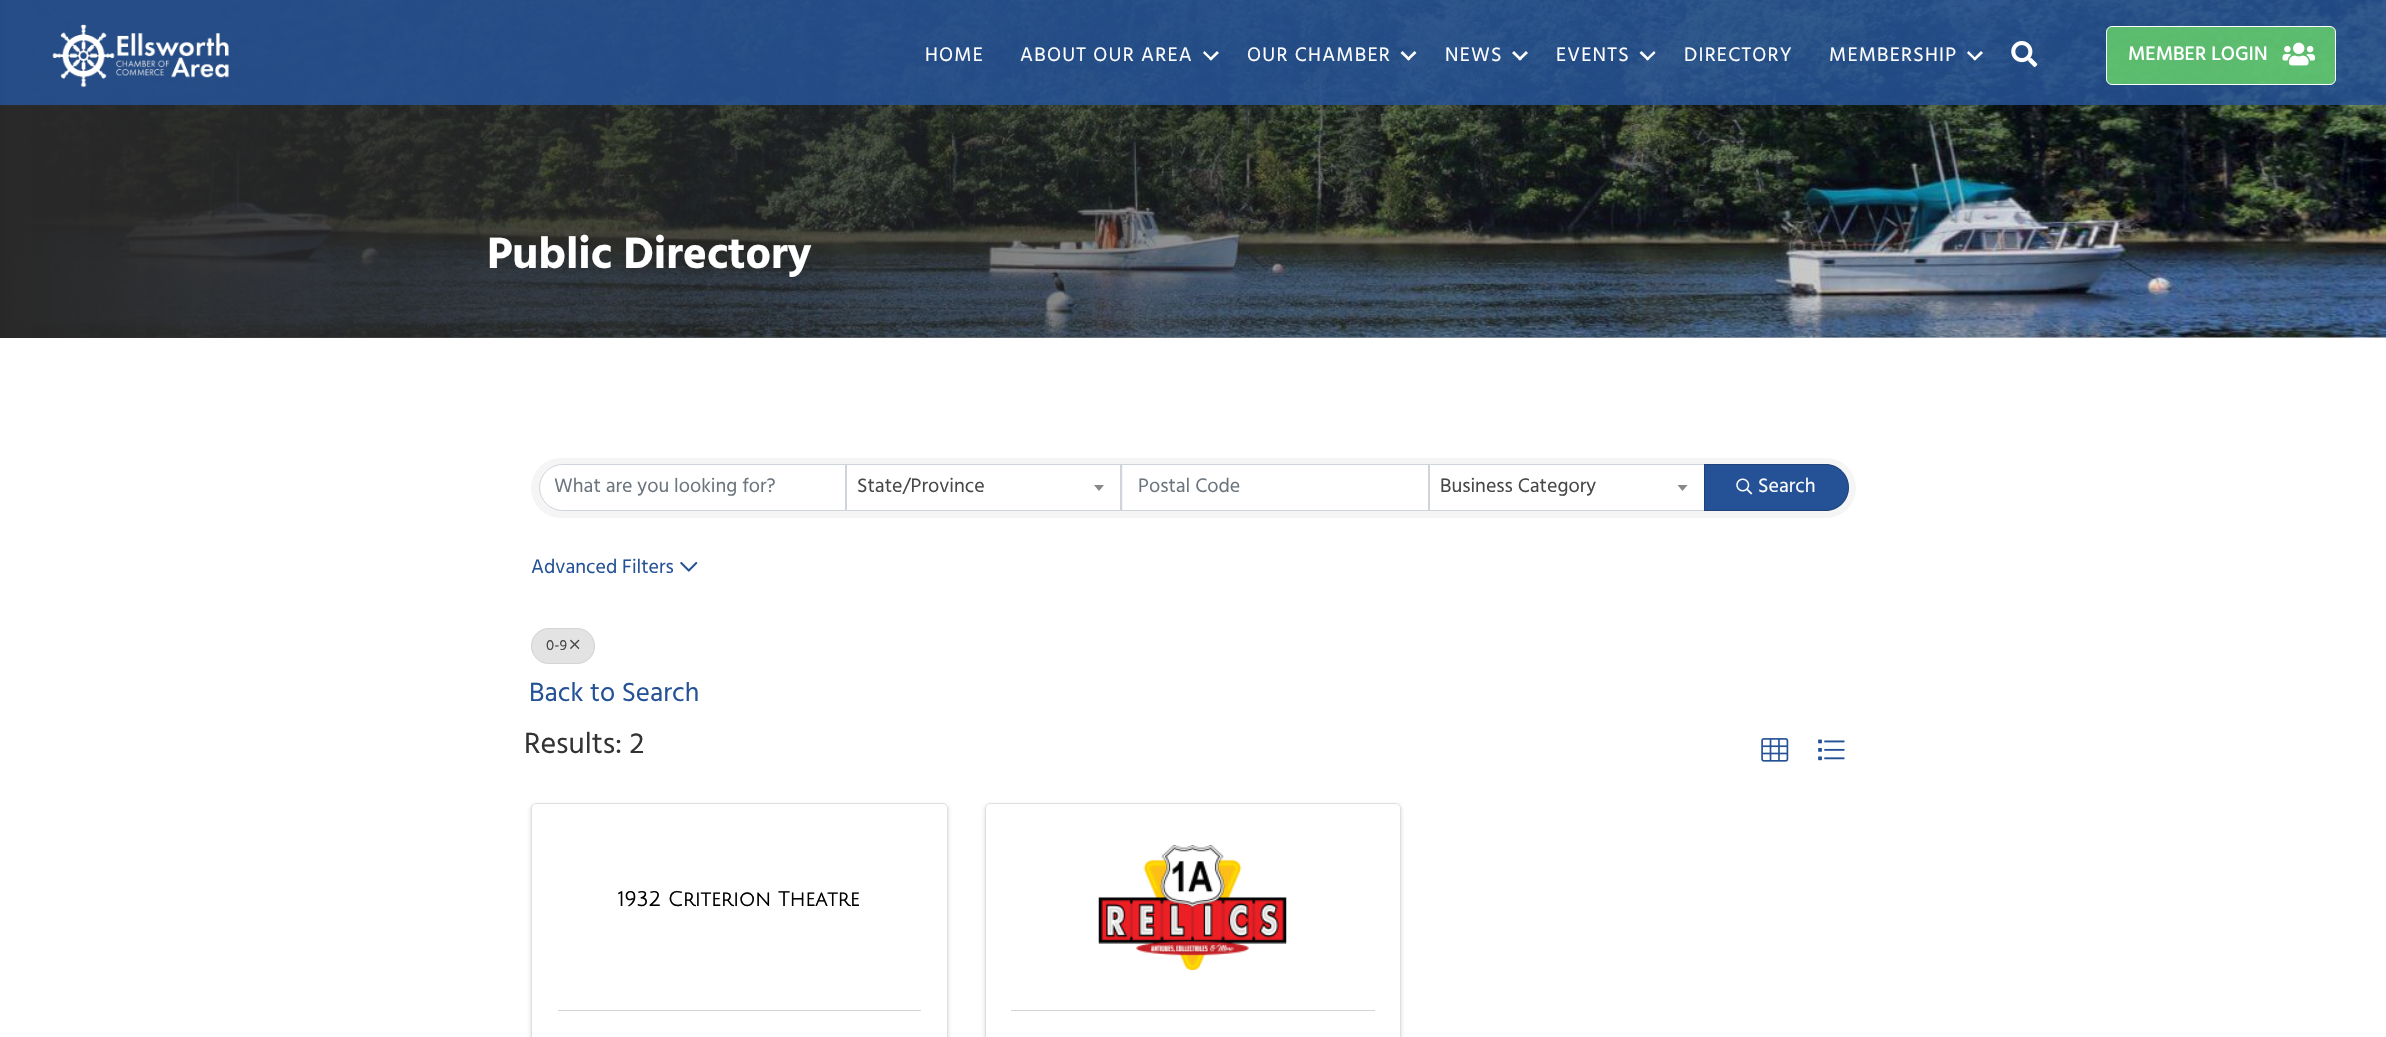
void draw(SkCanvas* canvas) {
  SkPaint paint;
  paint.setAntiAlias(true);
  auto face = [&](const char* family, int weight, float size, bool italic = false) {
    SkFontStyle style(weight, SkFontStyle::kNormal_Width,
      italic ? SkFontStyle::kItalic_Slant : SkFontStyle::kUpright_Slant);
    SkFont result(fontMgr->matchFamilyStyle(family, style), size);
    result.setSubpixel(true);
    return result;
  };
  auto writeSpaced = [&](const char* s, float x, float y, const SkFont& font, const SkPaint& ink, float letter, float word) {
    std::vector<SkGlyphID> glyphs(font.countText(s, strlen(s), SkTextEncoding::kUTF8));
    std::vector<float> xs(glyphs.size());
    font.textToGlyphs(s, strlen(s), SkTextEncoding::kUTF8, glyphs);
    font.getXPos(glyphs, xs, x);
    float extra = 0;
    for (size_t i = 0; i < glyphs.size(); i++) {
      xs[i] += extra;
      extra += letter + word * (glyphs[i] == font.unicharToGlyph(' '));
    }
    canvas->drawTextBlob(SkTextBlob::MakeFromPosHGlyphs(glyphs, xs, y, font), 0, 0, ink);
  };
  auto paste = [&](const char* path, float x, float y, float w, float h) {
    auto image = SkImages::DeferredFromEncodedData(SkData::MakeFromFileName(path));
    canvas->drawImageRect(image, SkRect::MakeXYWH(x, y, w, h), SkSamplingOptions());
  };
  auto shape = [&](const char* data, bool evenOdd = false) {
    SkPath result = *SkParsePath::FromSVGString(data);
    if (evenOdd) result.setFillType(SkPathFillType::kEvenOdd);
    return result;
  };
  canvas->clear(0xffffffff);
  paste("img/4.png", 14, 0, 2372, 338);
  {
    const SkColor colors[] = {0xff282828, 0x00282828};
    const float stops[] = {0, 1};
    const SkPoint ends[] = {{0, 169}, {2386, 169}};
    paint.setShader(SkGradientShader::MakeLinear(ends, colors, stops, 2, SkTileMode::kClamp));
    paint.setAlpha(255);
  }
  canvas->drawRect(SkRect::MakeXYWH(0, 0, 2335, 338), paint);
  paint.setShader(nullptr);
  paint.setColor(0xd9255297);
  canvas->drawRect(SkRect::MakeXYWH(0, 0, 2386, 105), paint);
  paste("img/1.png", 52, 24, 177, 64);
  paint.setColor(0xffffffff);
  canvas->drawPath(shape("M1217 51L1219 53L1211 60.5L1209 59Z"), paint);
  canvas->drawPath(shape("M1204.5 51L1212.5 59L1211 60.5L1203 53Z"), paint);
  canvas->drawPath(shape("M1414.5 51L1416.5 53L1408.5 60.5L1406.5 59Z"), paint);
  canvas->drawPath(shape("M1402.5 51L1410.5 59L1408.5 60.5L1400.5 53Z"), paint);
  canvas->drawPath(shape("M1526 51L1528 53L1520 60.5L1518 59Z"), paint);
  canvas->drawPath(shape("M1514 51L1522 59L1520 60.5L1512 53Z"), paint);
  canvas->drawPath(shape("M1654 51L1655.5 53L1647.5 60.5L1646 59Z"), paint);
  canvas->drawPath(shape("M1641.5 51L1649.5 59L1647.5 60.5L1639.5 53Z"), paint);
  canvas->drawPath(shape("M1981 51L1983 53L1975 60.5L1973 59Z"), paint);
  canvas->drawPath(shape("M1968.5 51L1976.5 59L1975 60.5L1967 53Z"), paint);
  paste("img/2.png", 2011, 41, 27, 26);
  paint.setColor(0xb372ea64);
  canvas->drawRoundRect(SkRect::MakeXYWH(2106.5f, 26.5f, 229, 58), 5.5f, 5.5f, paint);
  paint.setStroke(true);
  paint.setStrokeWidth(1);
  paint.setColor(0xffffffff);
  canvas->drawRoundRect(SkRect::MakeXYWH(2106.5f, 26.5f, 229, 58), 5.5f, 5.5f, paint);
  paste("img/3.png", 2282, 42, 33, 24);
  paint.setStroke(false);
  paint.setColor(0xfff5f5f5);
  canvas->drawRoundRect(SkRect::MakeXYWH(531, 458, 1325, 60), 30, 30, paint);
  paint.setColor(0xffffffff);
  canvas->drawPath(shape("M562.5 464.5H845.5V510.5H562.5C550 510.5 539.5 500 539.5 487.5C539.5 475 550 464.5 562.5 464.5Z"), paint);
  paint.setStroke(true);
  paint.setColor(0xffced4da);
  canvas->drawPath(shape("M562.5 464.5H845.5V510.5H562.5C550 510.5 539.5 500 539.5 487.5C539.5 475 550 464.5 562.5 464.5Z"), paint);
  paint.setStroke(false);
  paint.setColor(0xffffffff);
  canvas->drawRect(SkRect::MakeXYWH(846.5f, 464.5f, 274, 46), paint);
  paint.setStroke(true);
  paint.setColor(0xffced4da);
  canvas->drawRect(SkRect::MakeXYWH(846.5f, 464.5f, 274, 46), paint);
  paint.setStroke(false);
  paint.setColor(0xff888888);
  canvas->drawPath(shape("M1094 485H1104L1099 491Z"), paint);
  paint.setColor(0xffffffff);
  canvas->drawRect(SkRect::MakeXYWH(1123, 465, 305, 45), paint);
  paint.setStroke(true);
  paint.setColor(0xffced4da);
  canvas->drawRect(SkRect::MakeXYWH(1121.5f, 464.5f, 307, 46), paint);
  paint.setStroke(false);
  paint.setColor(0xffffffff);
  canvas->drawRect(SkRect::MakeXYWH(1429.5f, 464.5f, 275, 46), paint);
  paint.setStroke(true);
  paint.setColor(0xffced4da);
  canvas->drawRect(SkRect::MakeXYWH(1429.5f, 464.5f, 275, 46), paint);
  paint.setStroke(false);
  paint.setColor(0xff888888);
  canvas->drawPath(shape("M1677.5 485H1687.5L1682.5 491Z"), paint);
  paint.setColor(0xff255297);
  canvas->drawPath(shape("M1704 464H1825.5C1838.5 464 1849 474.5 1849 487.5C1849 500.5 1838.5 511 1825.5 511H1704Z"), paint);
  paint.setStroke(true);
  paint.setColor(0x33000000);
  canvas->drawPath(shape("M1704.5 464.5H1825.5C1838 464.5 1848.5 475 1848.5 487.5C1848.5 500 1838 510.5 1825.5 510.5H1704.5Z"), paint);
  paste("img/5.png", 1736, 478, 17, 17);
  paste("img/6.png", 680, 561, 18, 11);
  paint.setStroke(false);
  paint.setColor(0xffe3e3e3);
  canvas->drawRoundRect(SkRect::MakeXYWH(531, 628, 64, 36), 18, 18, paint);
  paint.setStroke(true);
  paint.setColor(0x12000000);
  canvas->drawRoundRect(SkRect::MakeXYWH(531.5f, 628.5f, 63, 35), 17.5f, 17.5f, paint);
  paste("img/7.png", 570, 639, 10, 10);
  paste("img/8.png", 1761, 738, 28, 24);
  paste("img/9.png", 1818, 739, 27, 22);
  paint.setStroke(false);
  paint.setColor(0x26000000);
  paint.setMaskFilter(SkMaskFilter::MakeBlur(kNormal_SkBlurStyle, 2));
  canvas->drawRoundRect(SkRect::MakeXYWH(531, 805, 417, 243), 5, 5, paint);
  paint.setMaskFilter(nullptr);
  paint.setColor(0xffffffff);
  canvas->drawRoundRect(SkRect::MakeXYWH(531.5f, 803.5f, 416, 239), 4.5f, 4.5f, paint);
  paint.setStroke(true);
  paint.setColor(0xffdfdfdf);
  canvas->drawRoundRect(SkRect::MakeXYWH(531.5f, 803.5f, 416, 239), 4.5f, 4.5f, paint);
  paint.setStroke(false);
  paint.setColor(0xffd4d4d4);
  canvas->drawRect(SkRect::MakeXYWH(558, 1010, 363, 1), paint);
  canvas->save();
  canvas->clipPath(shape("M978 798H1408V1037H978ZM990 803H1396C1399 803 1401 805 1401 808V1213C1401 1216 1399 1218 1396 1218H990C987 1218 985 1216 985 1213V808C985 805 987 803 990 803Z", true), true);
  paint.setColor(0x26000000);
  paint.setMaskFilter(SkMaskFilter::MakeBlur(kNormal_SkBlurStyle, 2));
  canvas->drawRoundRect(SkRect::MakeXYWH(985, 805, 416, 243), 5, 5, paint);
  paint.setMaskFilter(nullptr);
  canvas->restore();
  paint.setStroke(true);
  paint.setColor(0xffdfdfdf);
  canvas->drawRoundRect(SkRect::MakeXYWH(985.5f, 803.5f, 415, 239), 4.5f, 4.5f, paint);
  paste("img/10.png", 1098, 845, 189, 125);
  paint.setStroke(false);
  paint.setColor(0xffd4d4d4);
  canvas->drawRect(SkRect::MakeXYWH(1011, 1010, 364, 1), paint);
  auto f0 = face("Hind", 400, 20);
  paint.setColor(0xffffffff);
  {
    const struct { const char* s; float x, y; } items[] = {
      {"HOME", 925, 61},
      {"ABOUT OUR AREA", 1020, 61},
      {"OUR CHAMBER", 1247, 61},
      {"NEWS", 1445, 61},
      {"EVENTS", 1556, 61},
      {"DIRECTORY", 1684, 61},
      {"MEMBERSHIP", 1829, 61},
    };
    for (auto [s, x, y] : items) {
      writeSpaced(s, x, y, f0, paint, 1.25f, 0);
    }
  }
  auto f1 = face("Hind", 500, 20);
  canvas->drawString("MEMBER LOGIN", 2128, 60, f1, paint);
  auto f2 = face("Hind", 700, 45);
  canvas->drawString("Public Directory", 487, 268, f2, paint);
  paint.setColor(0xff6c757d);
  canvas->drawString("What are you looking for?", 554, 492, f0, paint);
  paint.setColor(0xff474747);
  canvas->drawString("State/Province", 857, 492, f0, paint);
  paint.setColor(0xff6c757d);
  canvas->drawString("Postal Code", 1138, 492, f0, paint);
  paint.setColor(0xff474747);
  canvas->drawString("Business Category", 1440, 492, f0, paint);
  paint.setColor(0xffffffff);
  canvas->drawString("Search", 1758, 492, f0, paint);
  paint.setColor(0xff255297);
  canvas->drawString("Advanced Filters", 531, 573, f0, paint);
  auto f3 = face("Hind", 400, 15);
  paint.setColor(0xff474747);
  canvas->drawString("0-9", 546, 650, f3, paint);
  auto f4 = face("Hind", 400, 27);
  paint.setColor(0xff255297);
  canvas->drawString("Back to Search", 529, 701, f4, paint);
  auto f5 = face("Hind", 400, 30);
  paint.setColor(0xff333333);
  canvas->drawString("Results: 2", 524, 753, f5, paint);
  auto f6 = face("Julius Sans One", 700, 20);
  paint.setColor(0xff000000);
  canvas->drawString("1932 Criterion Theatre", 618, 906, f6, paint);
}
